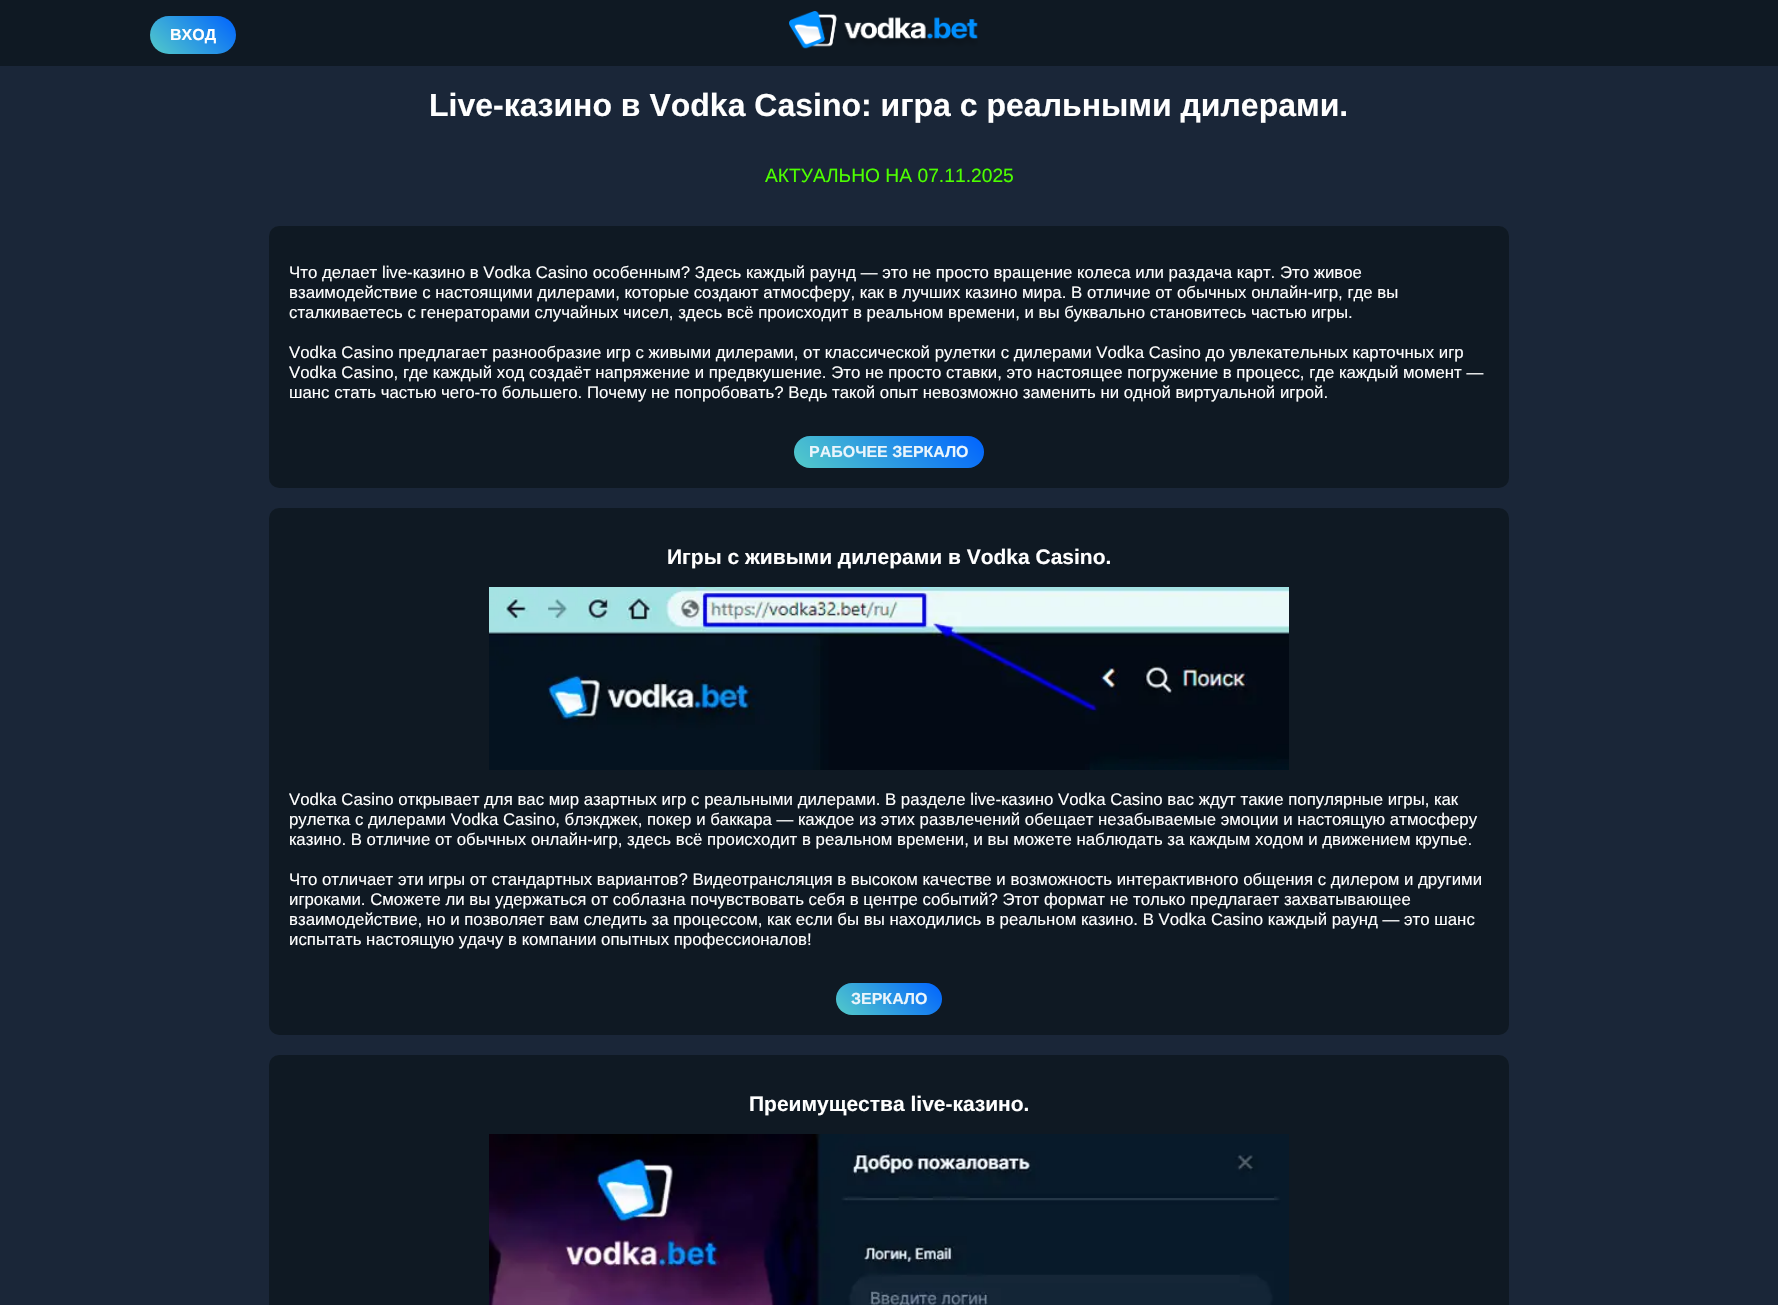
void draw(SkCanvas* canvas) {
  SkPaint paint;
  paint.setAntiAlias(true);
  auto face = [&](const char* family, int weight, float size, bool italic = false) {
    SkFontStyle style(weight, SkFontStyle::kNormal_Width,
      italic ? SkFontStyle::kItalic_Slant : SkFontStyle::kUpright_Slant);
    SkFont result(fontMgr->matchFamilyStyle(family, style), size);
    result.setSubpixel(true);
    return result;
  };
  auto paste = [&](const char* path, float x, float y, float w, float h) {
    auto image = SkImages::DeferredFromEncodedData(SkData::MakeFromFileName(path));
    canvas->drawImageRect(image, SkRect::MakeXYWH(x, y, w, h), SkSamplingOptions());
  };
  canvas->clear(0xff1a2638);
  paint.setColor(0xff0f1923);
  canvas->drawRect(SkRect::MakeXYWH(0, 0, 1778, 66), paint);
  {
    const SkColor colors[] = {0xff54cbc8, 0xff0063ff};
    const float stops[] = {0, 1};
    const SkPoint ends[] = {{162, 66}, {224, 4}};
    paint.setShader(SkGradientShader::MakeLinear(ends, colors, stops, 2, SkTileMode::kClamp));
    paint.setAlpha(255);
  }
  canvas->drawRoundRect(SkRect::MakeXYWH(150, 16, 86, 38), 19, 19, paint);
  paste("img/1.png", 789, 11, 189, 38);
  paint.setShader(nullptr);
  paint.setColor(0xff0f1923);
  canvas->drawRoundRect(SkRect::MakeXYWH(269, 226, 1240, 262), 10, 10, paint);
  {
    const SkColor colors[] = {0xff54cbc8, 0xff0063ff};
    const float stops[] = {0, 1};
    const SkPoint ends[] = {{834, 508}, {945, 397}};
    paint.setShader(SkGradientShader::MakeLinear(ends, colors, stops, 2, SkTileMode::kClamp));
    paint.setAlpha(255);
  }
  canvas->drawRoundRect(SkRect::MakeXYWH(794, 436, 190, 32), 16, 16, paint);
  paint.setShader(nullptr);
  paint.setColor(0xff0f1923);
  canvas->drawRoundRect(SkRect::MakeXYWH(269, 508, 1240, 527), 10, 10, paint);
  paste("img/2.png", 489, 587, 800, 183);
  {
    const SkColor colors[] = {0xff54cbc8, 0xff0063ff};
    const float stops[] = {0, 1};
    const SkPoint ends[] = {{855, 1034}, {924, 965}};
    paint.setShader(SkGradientShader::MakeLinear(ends, colors, stops, 2, SkTileMode::kClamp));
    paint.setAlpha(255);
  }
  canvas->drawRoundRect(SkRect::MakeXYWH(836, 983, 106, 32), 16, 16, paint);
  paint.setShader(nullptr);
  paint.setColor(0xff0f1923);
  canvas->drawRoundRect(SkRect::MakeXYWH(269, 1055, 1240, 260), 10, 10, paint);
  paste("img/3.png", 489, 1134, 800, 171);
  auto f0 = face("Liberation Sans", 700, 16);
  paint.setColor(0xffffffff);
  canvas->drawString("ВХОД", 170, 40, f0, paint);
  auto f1 = face("Liberation Sans", 700, 32);
  canvas->drawString("Live-казино в Vodka Casino: игра с реальными дилерами.", 429, 116, f1, paint);
  auto f2 = face("Liberation Sans", 400, 19.25f);
  paint.setColor(0xff4dff00);
  canvas->drawString("АКТУАЛЬНО НА 07.11.2025", 765, 182, f2, paint);
  auto f3 = face("Liberation Sans", 400, 16.8f);
  paint.setColor(0xffffffff);
  {
    const struct { const char* s; float x, y; } items[] = {
      {"Что делает live-казино в Vodka Casino особенным? Здесь каждый раунд — это не просто вращение колеса или раздача карт. Это живое", 289, 278},
      {"взаимодействие с настоящими дилерами, которые создают атмосферу, как в лучших казино мира. В отличие от обычных онлайн-игр, где вы", 289, 298},
      {"сталкиваетесь с генераторами случайных чисел, здесь всё происходит в реальном времени, и вы буквально становитесь частью игры.", 289, 318},
      {"Vodka Casino предлагает разнообразие игр с живыми дилерами, от классической рулетки с дилерами Vodka Casino до увлекательных карточных игр", 289, 358},
      {"Vodka Casino, где каждый ход создаёт напряжение и предвкушение. Это не просто ставки, это настоящее погружение в процесс, где каждый момент —", 289, 378},
      {"шанс стать частью чего-то большего. Почему не попробовать? Ведь такой опыт невозможно заменить ни одной виртуальной игрой.", 289, 398},
    };
    for (auto [s, x, y] : items) {
      canvas->drawString(s, x, y, f3, paint);
    }
  }
  paint.setColor(0xffeaf5fc);
  canvas->drawString("РАБОЧЕЕ ЗЕРКАЛО", 809, 457, f0, paint);
  auto f4 = face("Liberation Sans", 700, 21);
  paint.setColor(0xffffffff);
  canvas->drawString("Игры с живыми дилерами в Vodka Casino.", 667, 564, f4, paint);
  {
    const struct { const char* s; float x, y; } items[] = {
      {"Vodka Casino открывает для вас мир азартных игр с реальными дилерами. В разделе live-казино Vodka Casino вас ждут такие популярные игры, как", 289, 805},
      {"рулетка с дилерами Vodka Casino, блэкджек, покер и баккара — каждое из этих развлечений обещает незабываемые эмоции и настоящую атмосферу", 289, 825},
      {"казино. В отличие от обычных онлайн-игр, здесь всё происходит в реальном времени, и вы можете наблюдать за каждым ходом и движением крупье.", 289, 845},
      {"Что отличает эти игры от стандартных вариантов? Видеотрансляция в высоком качестве и возможность интерактивного общения с дилером и другими", 289, 885},
      {"игроками. Сможете ли вы удержаться от соблазна почувствовать себя в центре событий? Этот формат не только предлагает захватывающее", 289, 905},
      {"взаимодействие, но и позволяет вам следить за процессом, как если бы вы находились в реальном казино. В Vodka Casino каждый раунд — это шанс", 289, 925},
      {"испытать настоящую удачу в компании опытных профессионалов!", 289, 945},
    };
    for (auto [s, x, y] : items) {
      canvas->drawString(s, x, y, f3, paint);
    }
  }
  paint.setColor(0xffeaf5fc);
  canvas->drawString("ЗЕРКАЛО", 851, 1004, f0, paint);
  paint.setColor(0xffffffff);
  canvas->drawString("Преимущества live-казино.", 749, 1111, f4, paint);
}
